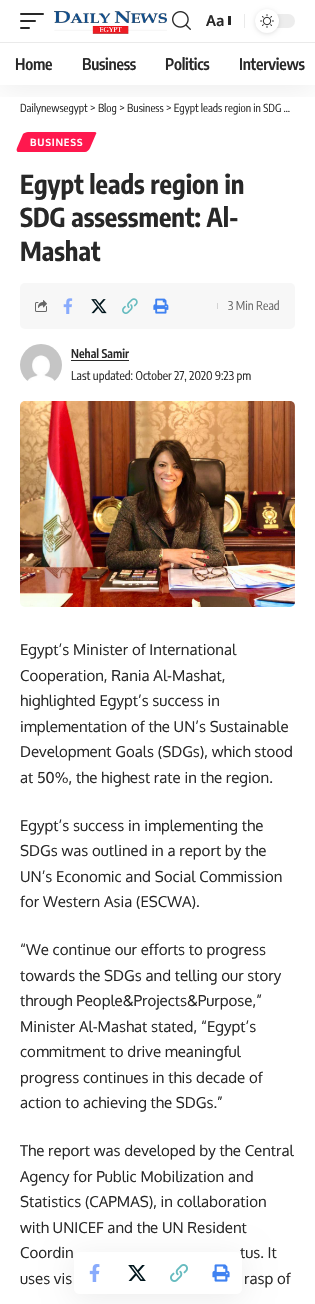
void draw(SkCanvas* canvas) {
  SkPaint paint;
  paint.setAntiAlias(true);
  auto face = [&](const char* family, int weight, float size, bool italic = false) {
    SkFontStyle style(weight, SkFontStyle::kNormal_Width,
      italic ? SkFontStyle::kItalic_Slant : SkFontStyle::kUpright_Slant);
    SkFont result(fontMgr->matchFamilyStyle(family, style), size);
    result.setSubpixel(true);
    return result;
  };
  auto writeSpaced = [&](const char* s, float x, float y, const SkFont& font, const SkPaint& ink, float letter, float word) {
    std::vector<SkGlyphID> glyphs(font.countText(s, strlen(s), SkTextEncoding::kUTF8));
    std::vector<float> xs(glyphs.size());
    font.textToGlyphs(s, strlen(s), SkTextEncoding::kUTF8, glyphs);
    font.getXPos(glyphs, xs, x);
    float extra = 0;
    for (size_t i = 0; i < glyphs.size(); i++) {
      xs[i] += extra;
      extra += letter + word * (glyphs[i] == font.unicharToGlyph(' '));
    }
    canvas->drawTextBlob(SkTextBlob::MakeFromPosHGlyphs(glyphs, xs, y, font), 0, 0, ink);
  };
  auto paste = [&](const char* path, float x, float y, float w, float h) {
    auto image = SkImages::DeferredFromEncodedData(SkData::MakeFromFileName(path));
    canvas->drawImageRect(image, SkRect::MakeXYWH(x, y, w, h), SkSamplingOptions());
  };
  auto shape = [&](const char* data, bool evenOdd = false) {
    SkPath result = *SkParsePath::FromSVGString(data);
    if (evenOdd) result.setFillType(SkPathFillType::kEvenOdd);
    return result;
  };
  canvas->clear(0xffffffff);
  paint.setColor(0xffff184e);
  canvas->drawPath(shape("M28 132H95C96 132 97 133 96 134L90 148C89 150 87 152 85 152H18C17 152 16 150 17 148L23 134C24 133 26 132 28 132Z"), paint);
  canvas->save();
  canvas->clipRect(SkRect::MakeXYWH(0, 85, 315, 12));
  paint.setColor(0x12000000);
  paint.setMaskFilter(SkMaskFilter::MakeBlur(kNormal_SkBlurStyle, 15));
  canvas->drawRect(SkRect::MakeXYWH(0, 4, 315, 85), paint);
  paint.setMaskFilter(nullptr);
  canvas->restore();
  paint.setColor(0xff282828);
  canvas->drawRoundRect(SkRect::MakeXYWH(20, 13, 24, 2), 1, 1, paint);
  canvas->drawRoundRect(SkRect::MakeXYWH(20, 20, 16, 2), 1, 1, paint);
  canvas->drawRoundRect(SkRect::MakeXYWH(20, 27, 10, 2), 1, 1, paint);
  paste("img/1.png", 54, 11, 113, 23);
  paste("img/2.png", 172, 11, 19, 19);
  canvas->drawRect(SkRect::MakeXYWH(228, 16, 3, 9), paint);
  paint.setColor(0xffeaeaea);
  canvas->drawRect(SkRect::MakeXYWH(244, 14, 1, 14), paint);
  paint.setColor(0xffededed);
  canvas->drawRoundRect(SkRect::MakeXYWH(255, 14, 40, 14), 7, 7, paint);
  paint.setColor(0x1f000000);
  paint.setMaskFilter(SkMaskFilter::MakeBlur(kNormal_SkBlurStyle, 2));
  canvas->drawRoundRect(SkRect::MakeXYWH(255, 10, 24, 24), 12, 12, paint);
  paint.setMaskFilter(nullptr);
  paint.setColor(0xffffffff);
  canvas->drawCircle(267, 21, 12, paint);
  paste("img/3.png", 260, 14, 14, 14);
  paint.setColor(0xffeaeaea);
  canvas->drawRect(SkRect::MakeXYWH(0, 42, 315, 1), paint);
  paint.setColor(0xfff7f7f7);
  canvas->drawRoundRect(SkRect::MakeXYWH(20, 283, 275, 46), 5, 5, paint);
  paste("img/4.png", 35, 300, 12, 12);
  paste("img/5.png", 63, 298, 10, 16);
  paste("img/6.png", 91, 299, 16, 15);
  paste("img/7.png", 122, 298, 16, 16);
  paste("img/8.png", 153, 298, 16, 16);
  paint.setColor(0xffd3d3d3);
  canvas->drawRect(SkRect::MakeXYWH(217, 303, 1, 6), paint);
  paste("img/9.png", 20, 344, 42, 37);
  paint.setColor(0xff282828);
  canvas->drawRect(SkRect::MakeXYWH(71, 360, 58, 1), paint);
  paste("img/10.png", 20, 401, 275, 206);
  paint.setColor(0x12000000);
  paint.setMaskFilter(SkMaskFilter::MakeBlur(kNormal_SkBlurStyle, 15));
  canvas->drawRoundRect(SkRect::MakeXYWH(74, 1257, 168, 42), 5, 5, paint);
  paint.setMaskFilter(nullptr);
  auto f0 = face("Oxygen", 700, 15);
  paint.setColor(0xff282828);
  canvas->drawString("Aa", 206, 26, f0, paint);
  auto f1 = face("Encode Sans Condensed", 600, 16);
  {
    const struct { const char* s; float x, y; } items[] = {
      {"Home", 15, 70},
      {"Business", 82, 70},
      {"Politics", 165, 70},
      {"Interviews", 239, 70},
    };
    for (auto [s, x, y] : items) {
      writeSpaced(s, x, y, f1, paint, -0.25f, 0);
    }
  }
  auto f2 = face("Encode Sans Condensed", 400, 11);
  canvas->drawString("Dailynewsegypt > Blog > Business > Egypt leads region in SDG …", 20, 112, f2, paint);
  auto f3 = face("Oxygen", 700, 10);
  paint.setColor(0xffffffff);
  writeSpaced("BUSINESS", 30, 146, f3, paint, 0.75f, 0);
  auto f4 = face("Encode Sans Condensed", 700, 26);
  paint.setColor(0xff282828);
  {
    const struct { const char* s; float x, y; } items[] = {
      {"Egypt leads region in", 20, 194},
      {"SDG assessment: Al-", 20, 227},
      {"Mashat", 20, 261},
    };
    for (auto [s, x, y] : items) {
      canvas->drawString(s, x, y, f4, paint);
    }
  }
  auto f5 = face("Encode Sans Condensed", 400, 12);
  paint.setColor(0xff666666);
  canvas->drawString("3 Min Read", 228, 310, f5, paint);
  auto f6 = face("Encode Sans Condensed", 600, 12);
  paint.setColor(0xff282828);
  canvas->drawString("Nehal Samir", 71, 358, f6, paint);
  canvas->drawString("Last updated: October 27, 2020 9:23 pm", 71, 380, f5, paint);
  auto f7 = face("Oxygen", 400, 15);
  {
    const struct { const char* s; float x, y; } items[] = {
      {"Egypt’s Minister of International", 20, 655},
      {"Cooperation, Rania Al-Mashat,", 20, 681},
      {"highlighted Egypt’s success in", 20, 706},
      {"implementation of the UN’s Sustainable", 20, 732},
      {"Development Goals (SDGs), which stood", 20, 757},
      {"at 50%, the highest rate in the region.", 20, 783},
      {"Egypt’s success in implementing the", 20, 831},
      {"SDGs was outlined in a report by the", 20, 856},
      {"UN’s Economic and Social Commission", 20, 882},
      {"for Western Asia (ESCWA).", 20, 907},
      {"“We continue our efforts to progress", 20, 955},
      {"towards the SDGs and telling our story", 20, 981},
      {"through People&Projects&Purpose,”", 20, 1006},
      {"Minister Al-Mashat stated, “Egypt’s", 20, 1032},
      {"commitment to drive meaningful", 20, 1057},
      {"progress continues in this decade of", 20, 1083},
      {"action to achieving the SDGs.”", 20, 1108},
      {"The report was developed by the Central", 20, 1156},
      {"Agency for Public Mobilization and", 20, 1182},
      {"Statistics (CAPMAS), in collaboration", 20, 1207},
      {"with UNICEF and the UN Resident", 20, 1233},
      {"Coordin", 20, 1258},
      {"tus. It", 240, 1258},
      {"uses vis", 20, 1284},
      {"rasp of", 244, 1284},
    };
    for (auto [s, x, y] : items) {
      canvas->drawString(s, x, y, f7, paint);
    }
  }
  paint.setColor(0xffffffff);
  canvas->drawRoundRect(SkRect::MakeXYWH(74, 1252, 168, 42), 5, 5, paint);
  paste("img/11.png", 89, 1264, 11, 18);
  paste("img/12.png", 128, 1265, 18, 16);
  paste("img/13.png", 170, 1264, 18, 18);
  paste("img/14.png", 212, 1264, 18, 18);
}
